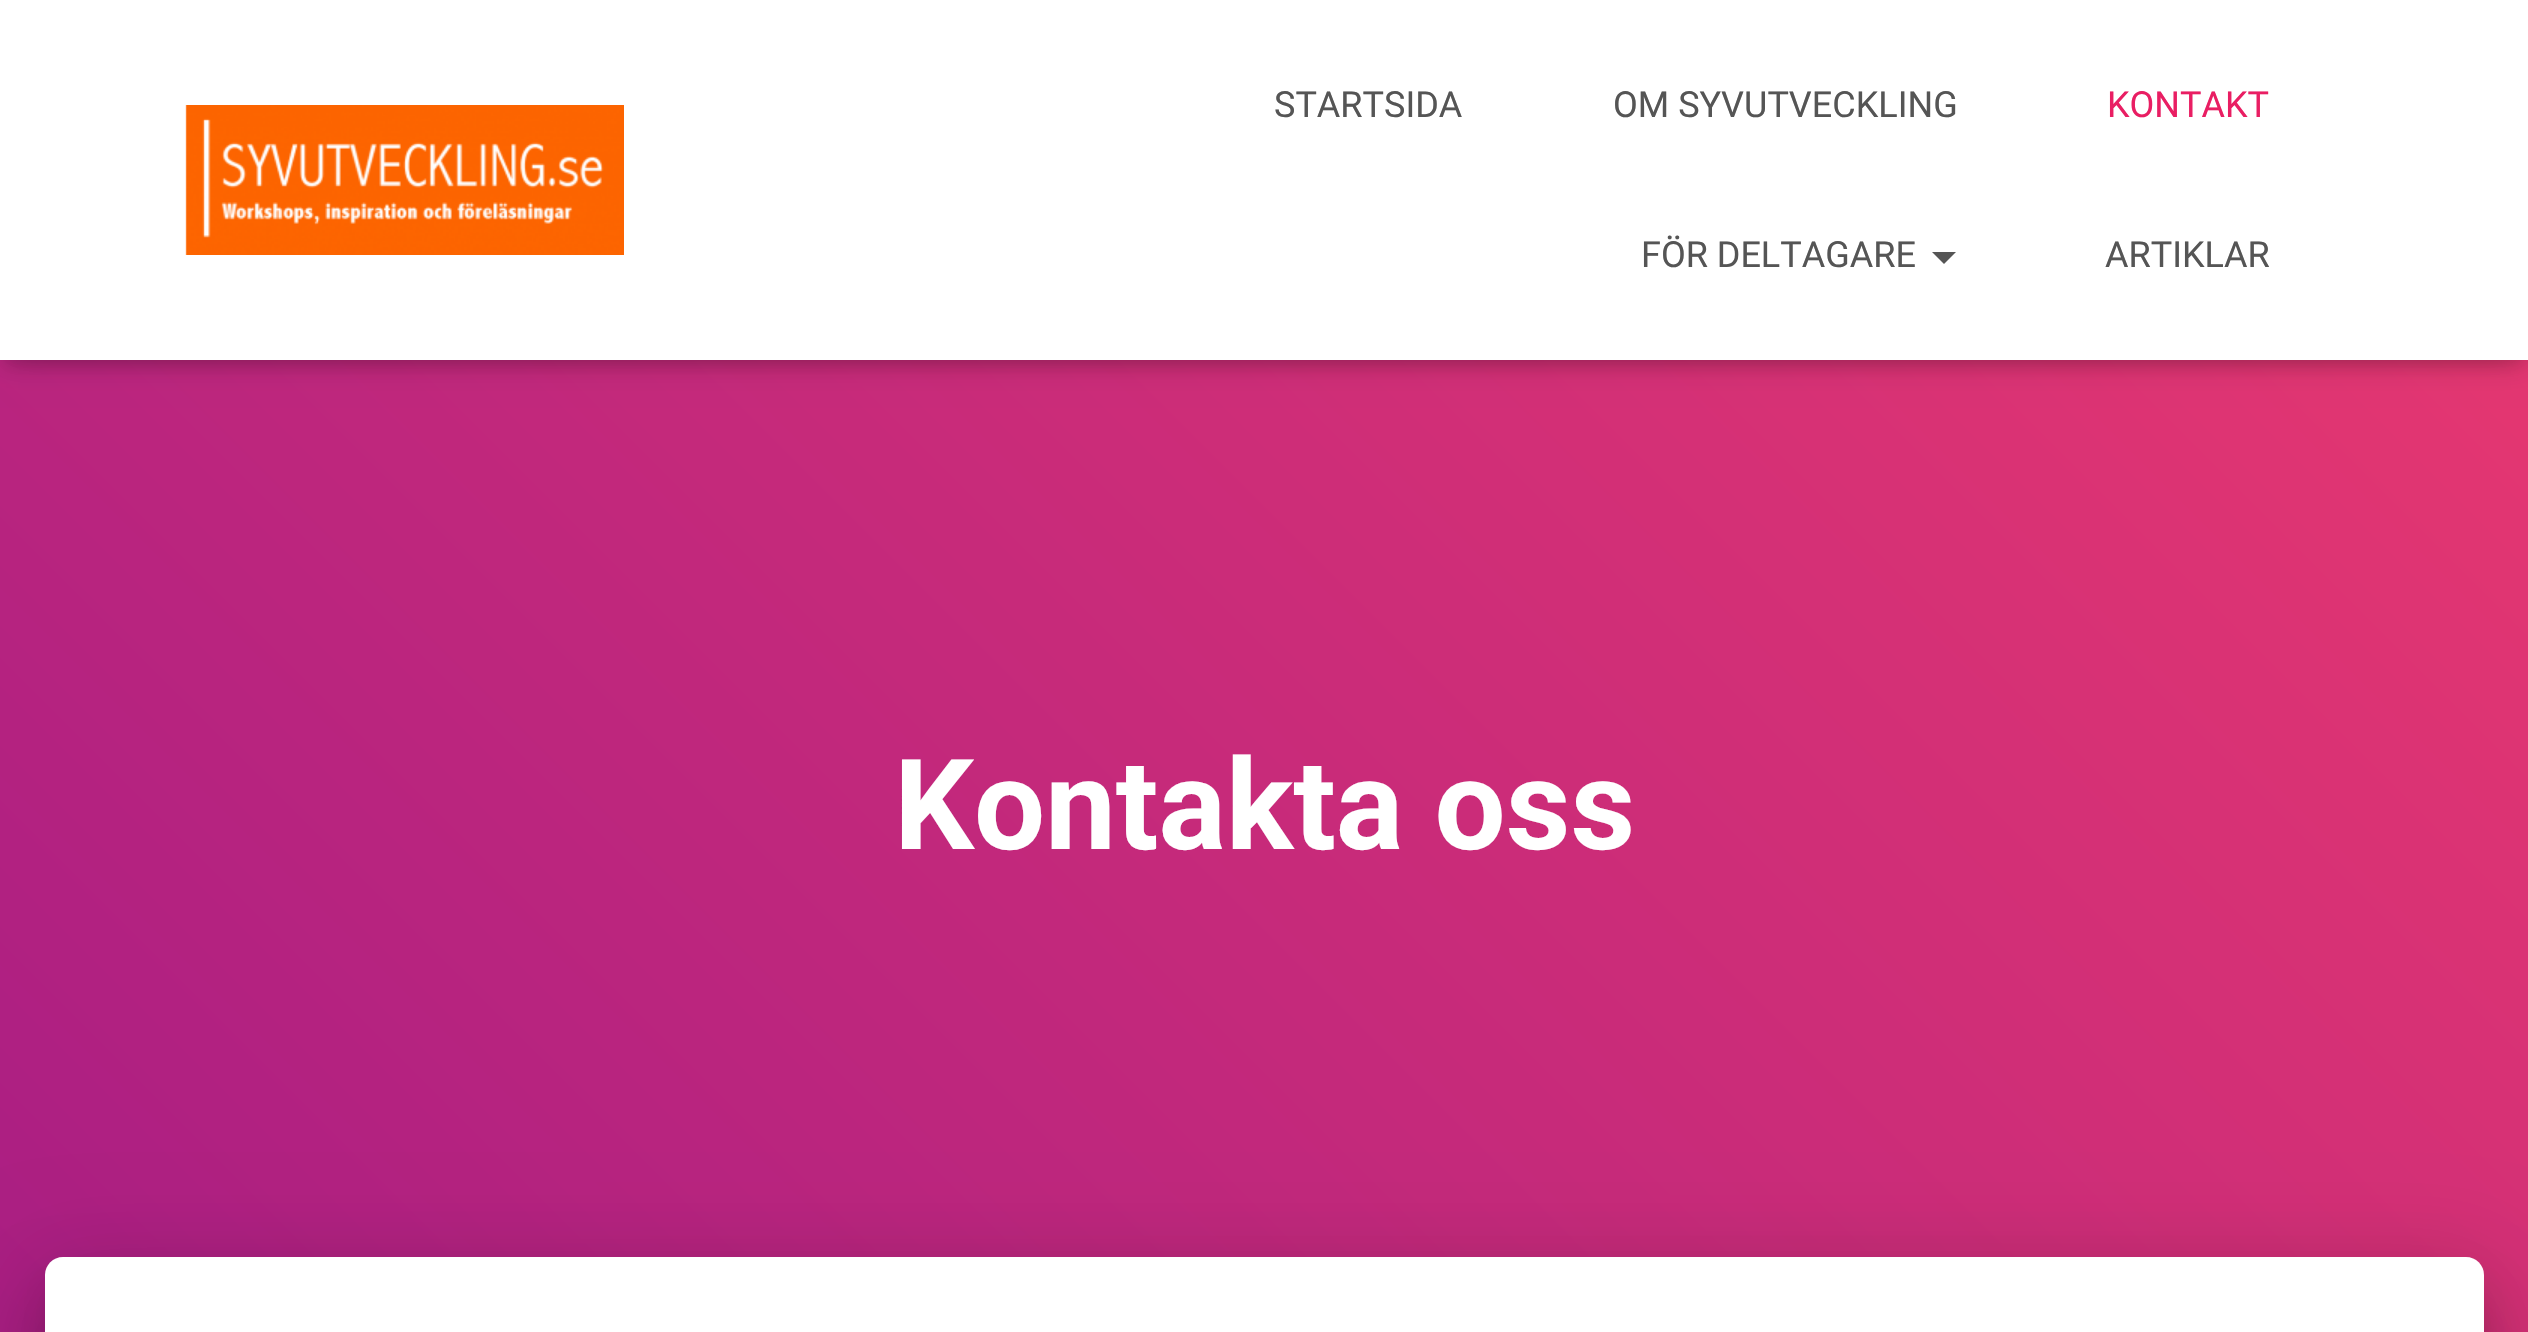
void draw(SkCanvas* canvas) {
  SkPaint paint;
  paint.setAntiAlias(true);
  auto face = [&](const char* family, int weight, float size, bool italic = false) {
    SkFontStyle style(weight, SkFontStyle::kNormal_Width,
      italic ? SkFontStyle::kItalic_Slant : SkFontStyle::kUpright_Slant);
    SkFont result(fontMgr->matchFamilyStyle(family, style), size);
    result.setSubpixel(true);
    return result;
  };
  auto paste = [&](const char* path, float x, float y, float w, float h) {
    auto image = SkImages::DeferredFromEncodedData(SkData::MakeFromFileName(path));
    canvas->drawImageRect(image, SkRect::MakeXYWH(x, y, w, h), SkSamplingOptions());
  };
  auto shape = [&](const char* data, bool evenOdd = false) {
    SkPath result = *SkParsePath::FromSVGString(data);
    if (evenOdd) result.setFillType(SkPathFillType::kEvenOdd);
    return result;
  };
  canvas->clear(0xffffffff);
  {
    const SkColor colors[] = {0xffa81d84, 0xffea396f};
    const float stops[] = {0, 1};
    const SkPoint ends[] = {{273, 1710}, {2256, -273}};
    paint.setShader(SkGradientShader::MakeLinear(ends, colors, stops, 2, SkTileMode::kClamp));
    paint.setAlpha(255);
  }
  canvas->drawRect(SkRect::MakeXYWH(0, 360, 2528, 972), paint);
  paint.setShader(nullptr);
  paint.setColor(0x1a000000);
  paint.setMaskFilter(SkMaskFilter::MakeBlur(kNormal_SkBlurStyle, 7.5f));
  canvas->drawRect(SkRect::MakeXYWH(6, 18, 2517, 348), paint);
  paint.setMaskFilter(nullptr);
  paint.setColor(0x1f000000);
  paint.setMaskFilter(SkMaskFilter::MakeBlur(kNormal_SkBlurStyle, 15));
  canvas->drawRect(SkRect::MakeXYWH(0, 3, 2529, 360), paint);
  paint.setMaskFilter(nullptr);
  paint.setColor(0x6b000000);
  paint.setMaskFilter(SkMaskFilter::MakeBlur(kNormal_SkBlurStyle, 15));
  canvas->drawRect(SkRect::MakeXYWH(18, 21, 2493, 324), paint);
  paint.setMaskFilter(nullptr);
  paint.setColor(0xffffffff);
  canvas->drawRect(SkRect::MakeXYWH(0, 0, 2528, 360), paint);
  paste("img/1.png", 185, 105, 439, 150);
  paint.setColor(0xff555555);
  canvas->drawPath(shape("M1932 252H1956L1944 264Z"), paint);
  paint.setColor(0x33000000);
  paint.setMaskFilter(SkMaskFilter::MakeBlur(kNormal_SkBlurStyle, 15));
  canvas->drawRoundRect(SkRect::MakeXYWH(60, 1296, 2409, 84), 3, 3, paint);
  paint.setMaskFilter(nullptr);
  paint.setColor(0x1f000000);
  paint.setMaskFilter(SkMaskFilter::MakeBlur(kNormal_SkBlurStyle, 45));
  canvas->drawRoundRect(SkRect::MakeXYWH(30, 1260, 2469, 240), 33, 33, paint);
  paint.setMaskFilter(nullptr);
  paint.setColor(0x24000000);
  paint.setMaskFilter(SkMaskFilter::MakeBlur(kNormal_SkBlurStyle, 36));
  canvas->drawRoundRect(SkRect::MakeXYWH(39, 1299, 2451, 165), 24, 24, paint);
  paint.setMaskFilter(nullptr);
  paint.setColor(0xffffffff);
  canvas->drawPath(shape("M63 1257H2466C2476 1257 2484 1265 2484 1275V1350H45V1275C45 1265 53 1257 63 1257Z"), paint);
  auto f0 = face("Roboto", 400, 36);
  paint.setColor(0xff555555);
  canvas->drawString("STARTSIDA", 1274, 117, f0, paint);
  canvas->drawString("OM SYVUTVECKLING", 1613, 117, f0, paint);
  paint.setColor(0xffe91e63);
  canvas->drawString("KONTAKT", 2107, 117, f0, paint);
  paint.setColor(0xff555555);
  canvas->drawString("FÖR DELTAGARE", 1641, 267, f0, paint);
  canvas->drawString("ARTIKLAR", 2105, 267, f0, paint);
  auto f1 = face("Roboto", 700, 126);
  paint.setColor(0xffffffff);
  canvas->drawString("Kontakta oss", 894, 849, f1, paint);
}
